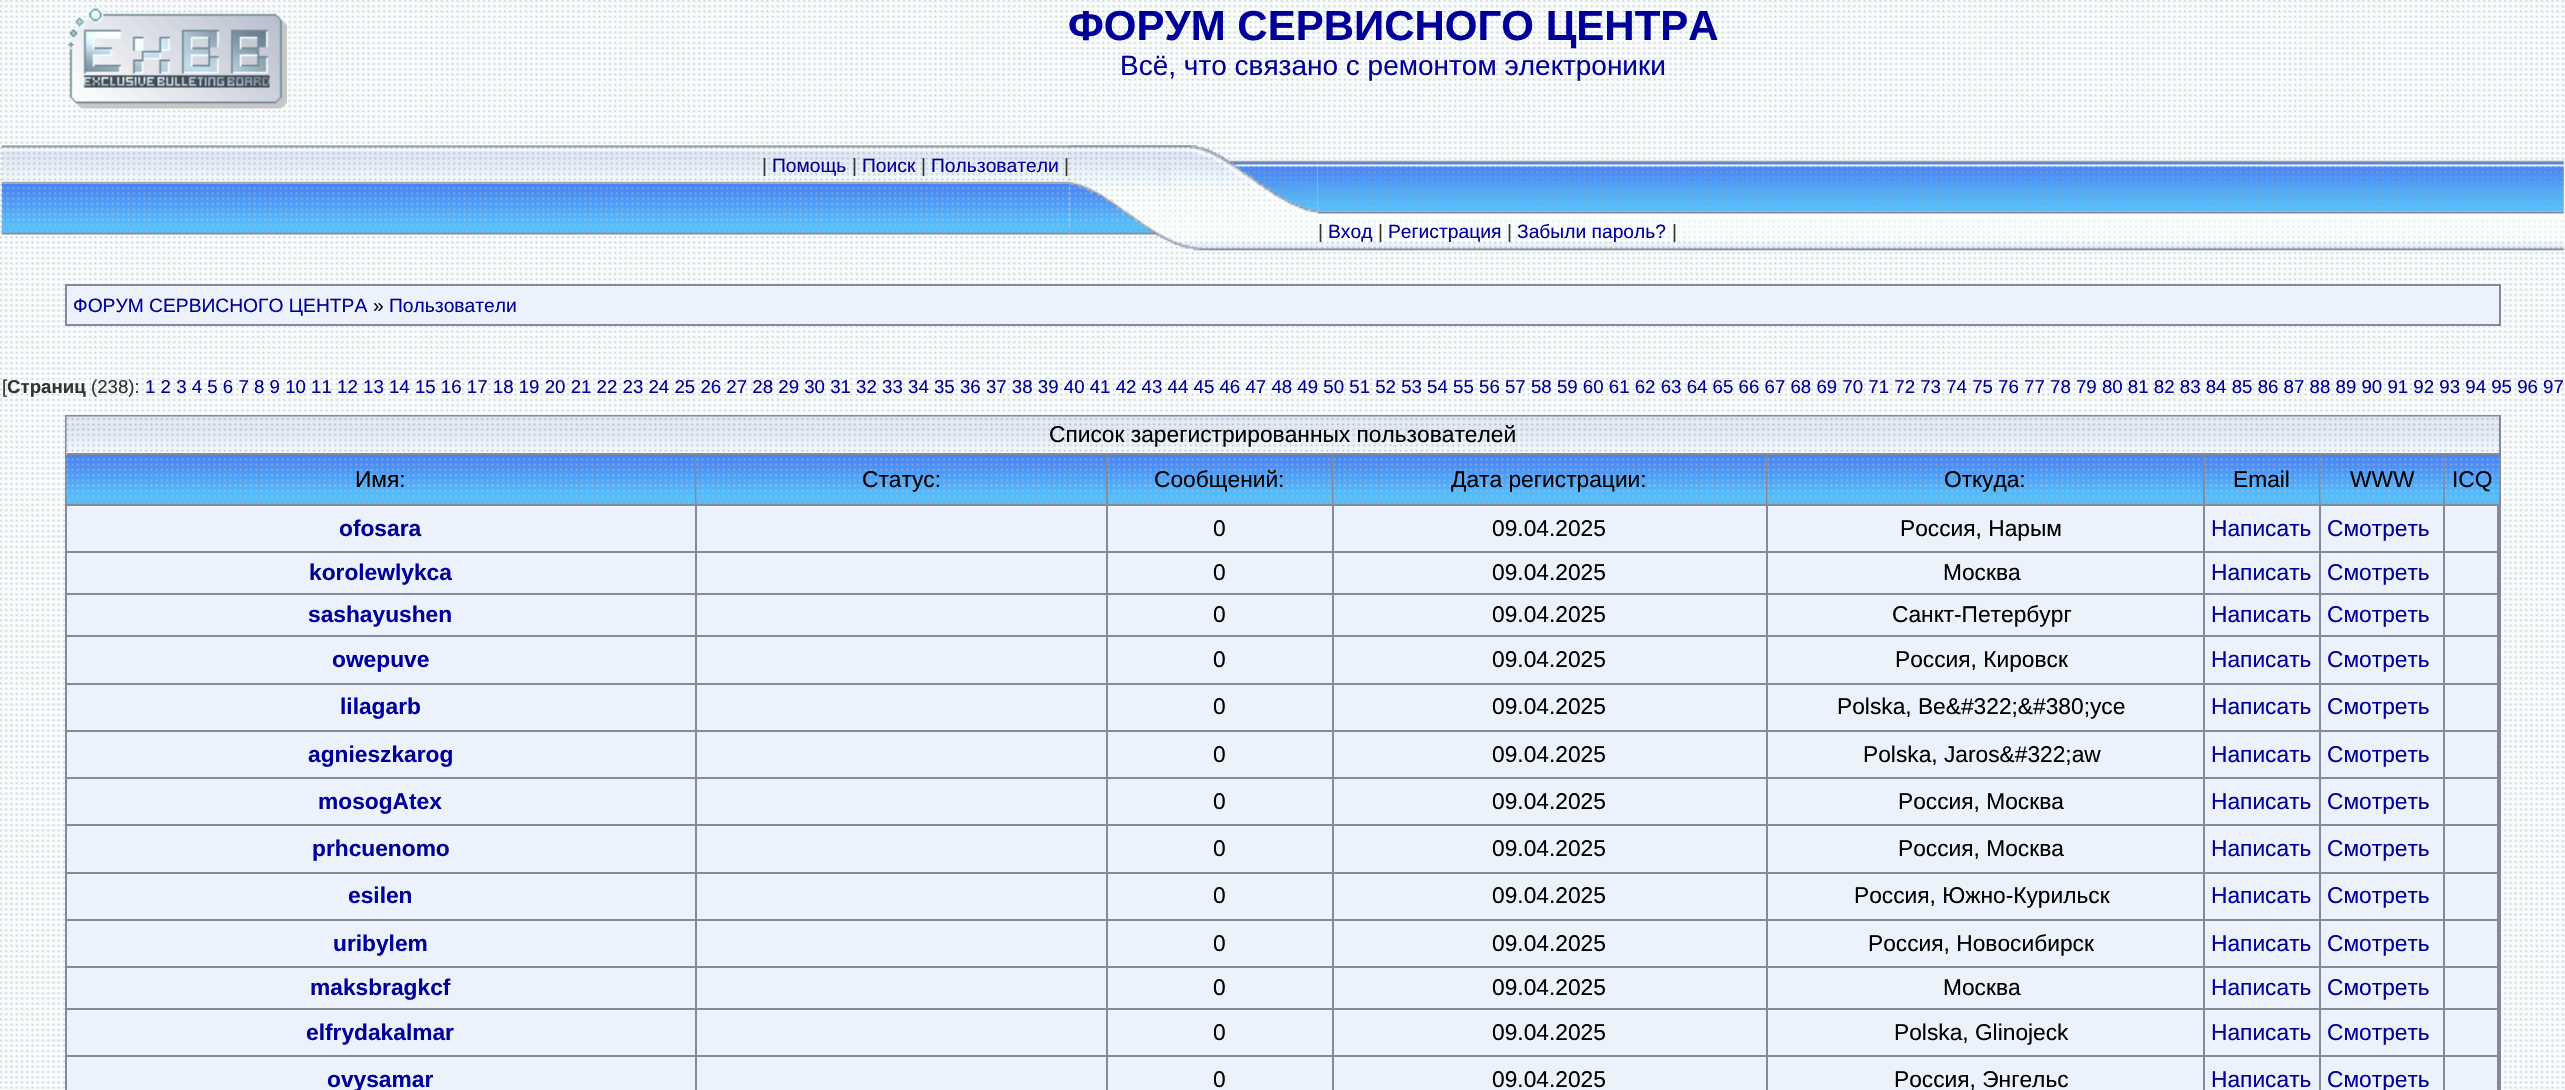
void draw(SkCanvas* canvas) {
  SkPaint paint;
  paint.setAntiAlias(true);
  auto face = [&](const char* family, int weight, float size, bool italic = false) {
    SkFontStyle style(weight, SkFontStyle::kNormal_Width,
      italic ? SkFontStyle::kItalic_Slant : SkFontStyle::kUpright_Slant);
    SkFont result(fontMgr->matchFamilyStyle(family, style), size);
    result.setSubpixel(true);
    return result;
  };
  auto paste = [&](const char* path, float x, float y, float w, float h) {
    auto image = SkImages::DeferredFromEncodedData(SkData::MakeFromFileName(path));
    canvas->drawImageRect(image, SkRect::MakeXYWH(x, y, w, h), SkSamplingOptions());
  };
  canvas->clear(0xffffffff);
  paste("img/1.png", 0, 0, 2565, 1090);
  paste("img/2.png", 66, 7, 221, 102);
  paste("img/3.png", 1, 145, 1069, 39);
  paste("img/4.png", 1, 183, 1069, 52);
  paste("img/6.png", 1317, 160, 1247, 52);
  paste("img/7.png", 1317, 211, 1247, 40);
  paste("img/5.png", 1069, 145, 249, 106);
  paint.setColor(0xffecf2fc);
  canvas->drawRect(SkRect::MakeXYWH(66, 285, 2434, 40), paint);
  paint.setStroke(true);
  paint.setStrokeWidth(2);
  paint.setColor(0xff848a9c);
  canvas->drawRect(SkRect::MakeXYWH(66, 285, 2434, 40), paint);
  paint.setStroke(false);
  paint.setColor(0xffecf2fc);
  canvas->drawRect(SkRect::MakeXYWH(67, 506, 2430, 584), paint);
  paint.setStroke(true);
  paint.setColor(0xff848a9c);
  canvas->drawRect(SkRect::MakeXYWH(66, 416, 2434, 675), paint);
  paste("img/8.png", 66, 416, 2433, 39);
  paint.setStroke(false);
  canvas->drawRect(SkRect::MakeXYWH(67, 453, 2432, 2), paint);
  paste("img/9.png", 66, 455, 629, 51);
  canvas->drawRect(SkRect::MakeXYWH(695, 455, 2, 229), paint);
  canvas->drawRect(SkRect::MakeXYWH(67, 504, 630, 2), paint);
  paste("img/10.png", 696, 455, 410, 51);
  canvas->drawRect(SkRect::MakeXYWH(1106, 455, 2, 229), paint);
  canvas->drawRect(SkRect::MakeXYWH(697, 504, 411, 2), paint);
  paste("img/11.png", 1107, 455, 225, 51);
  canvas->drawRect(SkRect::MakeXYWH(1332, 455, 2, 229), paint);
  canvas->drawRect(SkRect::MakeXYWH(1108, 504, 226, 2), paint);
  paste("img/12.png", 1333, 455, 433, 51);
  canvas->drawRect(SkRect::MakeXYWH(1766, 455, 2, 229), paint);
  canvas->drawRect(SkRect::MakeXYWH(1334, 504, 434, 2), paint);
  paste("img/13.png", 1767, 455, 436, 51);
  canvas->drawRect(SkRect::MakeXYWH(2203, 455, 2, 229), paint);
  canvas->drawRect(SkRect::MakeXYWH(1768, 504, 437, 2), paint);
  paste("img/14.png", 2205, 455, 114, 49);
  canvas->drawRect(SkRect::MakeXYWH(2319, 455, 2, 229), paint);
  canvas->drawRect(SkRect::MakeXYWH(2205, 504, 116, 2), paint);
  paste("img/15.png", 2320, 455, 123, 51);
  canvas->drawRect(SkRect::MakeXYWH(2443, 455, 2, 229), paint);
  canvas->drawRect(SkRect::MakeXYWH(2321, 504, 124, 2), paint);
  paste("img/16.png", 2444, 455, 55, 51);
  {
    const struct { float x, y, w, h; SkColor color; } items[] = {
      {2445, 504, 54, 2, 0xff848a9c},
      {67, 551, 2378, 2, 0xff848a9c},
      {2497, 506, 2, 178, 0xff848a9c},
      {2445, 551, 54, 2, 0xff848a9c},
      {67, 593, 2432, 2, 0xff848a9c},
      {67, 635, 2432, 2, 0xff848a9c},
      {67, 683, 2432, 2, 0xff848a9c},
      {695, 684, 2, 189, 0xff848a9c},
      {67, 730, 630, 2, 0xff848a9c},
      {1106, 684, 2, 189, 0xff848a9c},
      {697, 730, 411, 2, 0xff848a9c},
      {1332, 684, 2, 189, 0xff848a9c},
      {1108, 730, 226, 2, 0xff848a9c},
      {1766, 684, 2, 189, 0xff848a9c},
      {1334, 730, 434, 2, 0xff848a9c},
      {2203, 684, 2, 189, 0xff848a9c},
      {1768, 730, 437, 2, 0xff848a9c},
      {2319, 684, 2, 189, 0xff848a9c},
      {2205, 730, 116, 2, 0xff848a9c},
      {2443, 684, 2, 189, 0xff848a9c},
      {2321, 730, 124, 2, 0xff848a9c},
      {2497, 684, 2, 189, 0xff848a9c},
      {2445, 730, 54, 2, 0xff848a9c},
      {67, 777, 2432, 2, 0xff848a9c},
      {67, 824, 2432, 2, 0xff848a9c},
      {67, 872, 2432, 2, 0xff848a9c},
      {695, 873, 2, 217, 0xff848a9c},
      {67, 919, 630, 2, 0xff848a9c},
      {1106, 873, 2, 217, 0xff848a9c},
      {697, 919, 411, 2, 0xff848a9c},
      {1332, 873, 2, 217, 0xff848a9c},
      {1108, 919, 226, 2, 0xff848a9c},
      {1766, 873, 2, 217, 0xff848a9c},
      {1334, 919, 434, 2, 0xff848a9c},
      {2203, 873, 2, 217, 0xff848a9c},
      {1768, 919, 437, 2, 0xff848a9c},
      {2319, 873, 2, 217, 0xff848a9c},
      {2205, 919, 116, 2, 0xff848a9c},
      {2443, 873, 2, 217, 0xff848a9c},
      {2321, 919, 124, 2, 0xff848a9c},
      {2497, 873, 2, 217, 0xff848a9c},
      {2445, 919, 54, 2, 0xff848a9c},
      {67, 966, 2432, 2, 0xff848a9c},
      {67, 1008, 2432, 2, 0xff848a9c},
      {67, 1055, 2432, 2, 0xff848a9c},
    };
    for (auto [x, y, w, h, color] : items) {
      paint.setColor(color);
      canvas->drawRect(SkRect::MakeXYWH(x, y, w, h), paint);
    }
  }
  auto f0 = face("Liberation Sans", 700, 42);
  paint.setColor(0xff000099);
  canvas->drawString("ФОРУМ СЕРВИСНОГО ЦЕНТРА", 1068, 40, f0, paint);
  auto f1 = face("Liberation Sans", 400, 28);
  canvas->drawString("Всё, что связано с ремонтом электроники", 1120, 75, f1, paint);
  auto f2 = face("Liberation Sans", 400, 19.25f);
  paint.setColor(0xff333333);
  canvas->drawString("|", 762, 172, f2, paint);
  paint.setColor(0xff000099);
  canvas->drawString("Помощь", 772, 172, f2, paint);
  paint.setColor(0xff333333);
  canvas->drawString("|", 852, 172, f2, paint);
  paint.setColor(0xff000099);
  canvas->drawString("Поиск", 862, 172, f2, paint);
  paint.setColor(0xff333333);
  canvas->drawString("|", 921, 172, f2, paint);
  paint.setColor(0xff000099);
  canvas->drawString("Пользователи", 931, 172, f2, paint);
  paint.setColor(0xff333333);
  canvas->drawString("|", 1064, 172, f2, paint);
  canvas->drawString("|", 1318, 238, f2, paint);
  paint.setColor(0xff000099);
  canvas->drawString("Вход", 1328, 238, f2, paint);
  paint.setColor(0xff333333);
  canvas->drawString("|", 1378, 238, f2, paint);
  paint.setColor(0xff000099);
  canvas->drawString("Регистрация", 1388, 238, f2, paint);
  paint.setColor(0xff333333);
  canvas->drawString("|", 1507, 238, f2, paint);
  paint.setColor(0xff000099);
  canvas->drawString("Забыли пароль?", 1517, 238, f2, paint);
  paint.setColor(0xff333333);
  canvas->drawString("|", 1672, 238, f2, paint);
  paint.setColor(0xff000099);
  canvas->drawString("ФОРУМ СЕРВИСНОГО ЦЕНТРА", 73, 312, f2, paint);
  paint.setColor(0xff000000);
  canvas->drawString("»", 373, 312, f2, paint);
  paint.setColor(0xff000099);
  canvas->drawString("Пользователи", 389, 312, f2, paint);
  auto f3 = face("Liberation Sans", 400, 18.67f);
  paint.setColor(0xff333333);
  canvas->drawString("[", 2, 393, f3, paint);
  auto f4 = face("Liberation Sans", 700, 18.67f);
  canvas->drawString("Страниц", 7, 393, f4, paint);
  canvas->drawString("(238):", 91, 393, f3, paint);
  paint.setColor(0xff000099);
  canvas->drawString("1 2 3 4 5 6 7 8 9 10 11 12 13 14 15 16 17 18 19 20 21 22 23 24 25 26 27 28 29 30 31 32 33 34 35 36 37 38 39 40 41 42 43 44 45 46 47 48 49 50 51 52 53 54 55 56 57 58 59 60 61 62 63 64 65 66 67 68 69 70 71 72 73 74 75 76 77 78 79 80 81 82 83 84 85 86 87 88 89 90 91 92 93 94 95 96 97", 145, 393, f3, paint);
  auto f5 = face("Liberation Sans", 400, 22.75f);
  paint.setColor(0xff000000);
  {
    const struct { const char* s; float x, y; } items[] = {
      {"Список зарегистрированных пользователей", 1049, 442},
      {"Имя:", 355, 487},
      {"Статус:", 862, 487},
      {"Сообщений:", 1154, 487},
      {"Дата регистрации:", 1451, 487},
      {"Откуда:", 1944, 487},
      {"Email", 2233, 487},
      {"WWW", 2350, 487},
      {"ICQ", 2452, 487},
    };
    for (auto [s, x, y] : items) {
      canvas->drawString(s, x, y, f5, paint);
    }
  }
  auto f6 = face("Liberation Sans", 700, 22.75f);
  paint.setColor(0xff000099);
  canvas->drawString("ofosara", 339, 536, f6, paint);
  paint.setColor(0xff000000);
  {
    const struct { const char* s; float x, y; } items[] = {
      {"0", 1213, 536},
      {"09.04.2025", 1492, 536},
      {"Россия, Нарым", 1900, 536},
    };
    for (auto [s, x, y] : items) {
      canvas->drawString(s, x, y, f5, paint);
    }
  }
  paint.setColor(0xff000099);
  canvas->drawString("Написать", 2211, 536, f5, paint);
  canvas->drawString("Смотреть", 2327, 536, f5, paint);
  canvas->drawString("korolewlykca", 309, 580, f6, paint);
  paint.setColor(0xff000000);
  {
    const struct { const char* s; float x, y; } items[] = {
      {"0", 1213, 580},
      {"09.04.2025", 1492, 580},
      {"Москва", 1943, 580},
    };
    for (auto [s, x, y] : items) {
      canvas->drawString(s, x, y, f5, paint);
    }
  }
  paint.setColor(0xff000099);
  canvas->drawString("Написать", 2211, 580, f5, paint);
  canvas->drawString("Смотреть", 2327, 580, f5, paint);
  canvas->drawString("sashayushen", 308, 622, f6, paint);
  paint.setColor(0xff000000);
  {
    const struct { const char* s; float x, y; } items[] = {
      {"0", 1213, 622},
      {"09.04.2025", 1492, 622},
      {"Санкт-Петербург", 1892, 622},
    };
    for (auto [s, x, y] : items) {
      canvas->drawString(s, x, y, f5, paint);
    }
  }
  paint.setColor(0xff000099);
  canvas->drawString("Написать", 2211, 622, f5, paint);
  canvas->drawString("Смотреть", 2327, 622, f5, paint);
  canvas->drawString("owepuve", 332, 667, f6, paint);
  paint.setColor(0xff000000);
  {
    const struct { const char* s; float x, y; } items[] = {
      {"0", 1213, 667},
      {"09.04.2025", 1492, 667},
      {"Россия, Кировск", 1895, 667},
    };
    for (auto [s, x, y] : items) {
      canvas->drawString(s, x, y, f5, paint);
    }
  }
  paint.setColor(0xff000099);
  canvas->drawString("Написать", 2211, 667, f5, paint);
  canvas->drawString("Смотреть", 2327, 667, f5, paint);
  canvas->drawString("lilagarb", 340, 714, f6, paint);
  paint.setColor(0xff000000);
  {
    const struct { const char* s; float x, y; } items[] = {
      {"0", 1213, 714},
      {"09.04.2025", 1492, 714},
      {"Polska, Be&#322;&#380;yce", 1837, 714},
    };
    for (auto [s, x, y] : items) {
      canvas->drawString(s, x, y, f5, paint);
    }
  }
  paint.setColor(0xff000099);
  canvas->drawString("Написать", 2211, 714, f5, paint);
  canvas->drawString("Смотреть", 2327, 714, f5, paint);
  canvas->drawString("agnieszkarog", 308, 762, f6, paint);
  paint.setColor(0xff000000);
  {
    const struct { const char* s; float x, y; } items[] = {
      {"0", 1213, 762},
      {"09.04.2025", 1492, 762},
      {"Polska, Jaros&#322;aw", 1863, 762},
    };
    for (auto [s, x, y] : items) {
      canvas->drawString(s, x, y, f5, paint);
    }
  }
  paint.setColor(0xff000099);
  canvas->drawString("Написать", 2211, 762, f5, paint);
  canvas->drawString("Смотреть", 2327, 762, f5, paint);
  canvas->drawString("mosogAtex", 318, 809, f6, paint);
  paint.setColor(0xff000000);
  {
    const struct { const char* s; float x, y; } items[] = {
      {"0", 1213, 809},
      {"09.04.2025", 1492, 809},
      {"Россия, Москва", 1898, 809},
    };
    for (auto [s, x, y] : items) {
      canvas->drawString(s, x, y, f5, paint);
    }
  }
  paint.setColor(0xff000099);
  canvas->drawString("Написать", 2211, 809, f5, paint);
  canvas->drawString("Смотреть", 2327, 809, f5, paint);
  canvas->drawString("prhcuenomo", 312, 856, f6, paint);
  paint.setColor(0xff000000);
  {
    const struct { const char* s; float x, y; } items[] = {
      {"0", 1213, 856},
      {"09.04.2025", 1492, 856},
      {"Россия, Москва", 1898, 856},
    };
    for (auto [s, x, y] : items) {
      canvas->drawString(s, x, y, f5, paint);
    }
  }
  paint.setColor(0xff000099);
  canvas->drawString("Написать", 2211, 856, f5, paint);
  canvas->drawString("Смотреть", 2327, 856, f5, paint);
  canvas->drawString("esilen", 348, 903, f6, paint);
  paint.setColor(0xff000000);
  {
    const struct { const char* s; float x, y; } items[] = {
      {"0", 1213, 903},
      {"09.04.2025", 1492, 903},
      {"Россия, Южно-Курильск", 1854, 903},
    };
    for (auto [s, x, y] : items) {
      canvas->drawString(s, x, y, f5, paint);
    }
  }
  paint.setColor(0xff000099);
  canvas->drawString("Написать", 2211, 903, f5, paint);
  canvas->drawString("Смотреть", 2327, 903, f5, paint);
  canvas->drawString("uribylem", 333, 951, f6, paint);
  paint.setColor(0xff000000);
  {
    const struct { const char* s; float x, y; } items[] = {
      {"0", 1213, 951},
      {"09.04.2025", 1492, 951},
      {"Россия, Новосибирск", 1868, 951},
    };
    for (auto [s, x, y] : items) {
      canvas->drawString(s, x, y, f5, paint);
    }
  }
  paint.setColor(0xff000099);
  canvas->drawString("Написать", 2211, 951, f5, paint);
  canvas->drawString("Смотреть", 2327, 951, f5, paint);
  canvas->drawString("maksbragkcf", 310, 995, f6, paint);
  paint.setColor(0xff000000);
  {
    const struct { const char* s; float x, y; } items[] = {
      {"0", 1213, 995},
      {"09.04.2025", 1492, 995},
      {"Москва", 1943, 995},
    };
    for (auto [s, x, y] : items) {
      canvas->drawString(s, x, y, f5, paint);
    }
  }
  paint.setColor(0xff000099);
  canvas->drawString("Написать", 2211, 995, f5, paint);
  canvas->drawString("Смотреть", 2327, 995, f5, paint);
  canvas->drawString("elfrydakalmar", 306, 1040, f6, paint);
  paint.setColor(0xff000000);
  {
    const struct { const char* s; float x, y; } items[] = {
      {"0", 1213, 1040},
      {"09.04.2025", 1492, 1040},
      {"Polska, Glinojeck", 1894, 1040},
    };
    for (auto [s, x, y] : items) {
      canvas->drawString(s, x, y, f5, paint);
    }
  }
  paint.setColor(0xff000099);
  canvas->drawString("Написать", 2211, 1040, f5, paint);
  canvas->drawString("Смотреть", 2327, 1040, f5, paint);
  canvas->drawString("ovysamar", 327, 1087, f6, paint);
  paint.setColor(0xff000000);
  {
    const struct { const char* s; float x, y; } items[] = {
      {"0", 1213, 1087},
      {"09.04.2025", 1492, 1087},
      {"Россия, Энгельс", 1894, 1087},
    };
    for (auto [s, x, y] : items) {
      canvas->drawString(s, x, y, f5, paint);
    }
  }
  paint.setColor(0xff000099);
  canvas->drawString("Написать", 2211, 1087, f5, paint);
  canvas->drawString("Смотреть", 2327, 1087, f5, paint);
}
